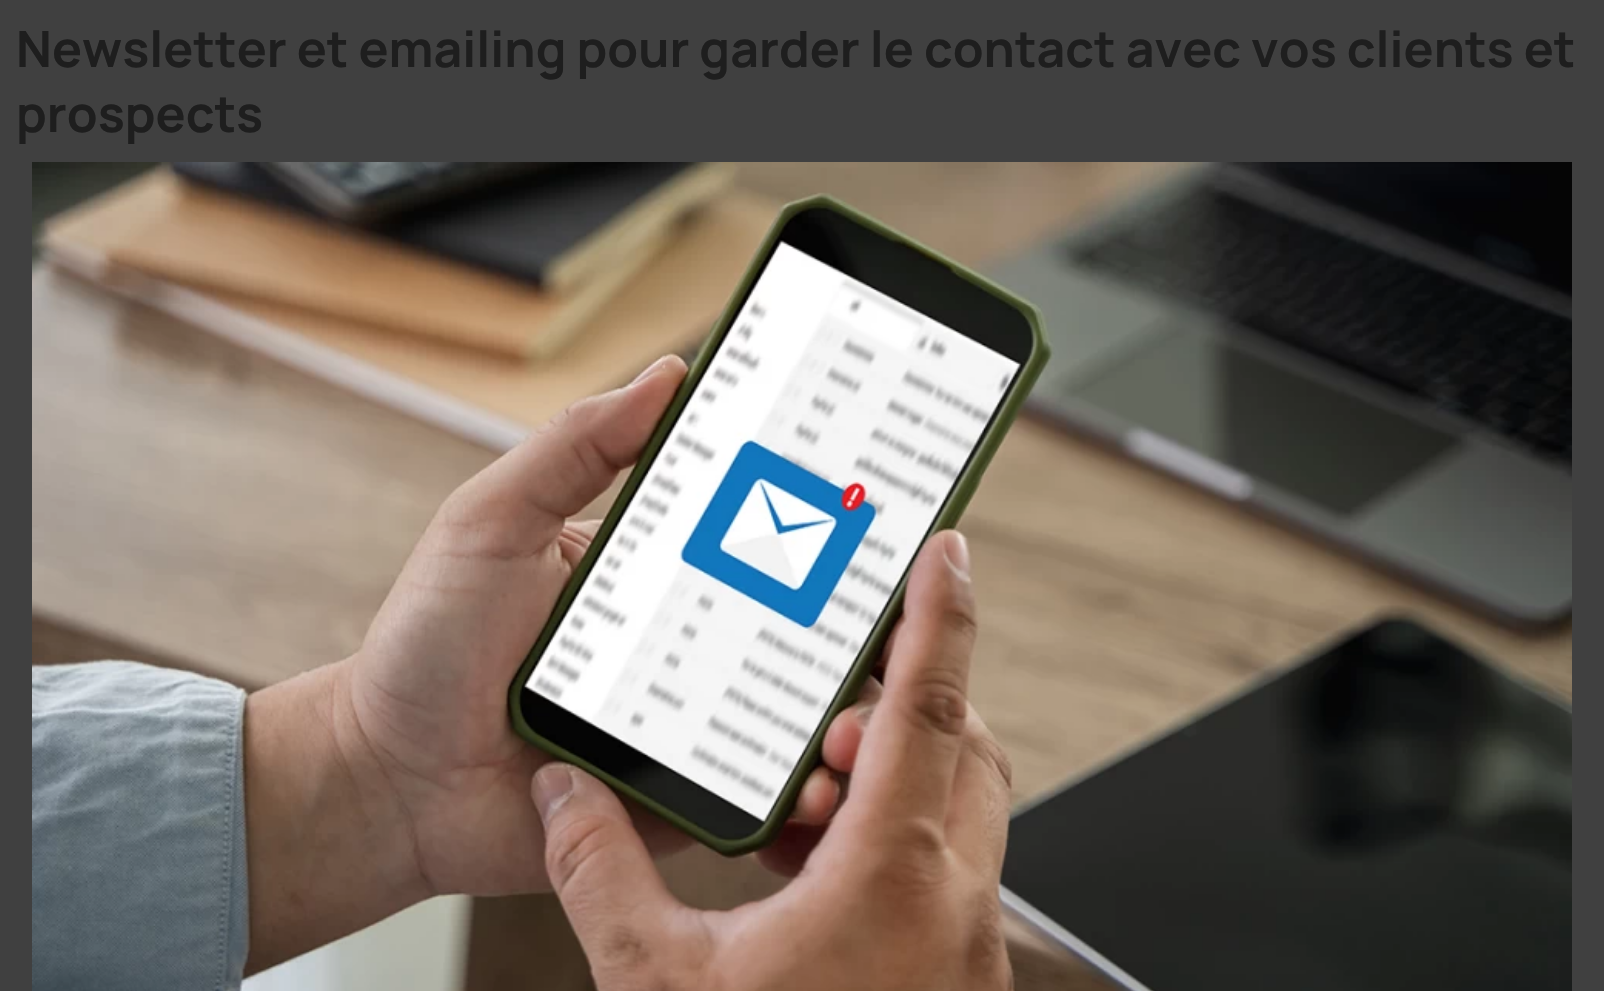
void draw(SkCanvas* canvas) {
  SkPaint paint;
  paint.setAntiAlias(true);
  auto face = [&](const char* family, int weight, float size, bool italic = false) {
    SkFontStyle style(weight, SkFontStyle::kNormal_Width,
      italic ? SkFontStyle::kItalic_Slant : SkFontStyle::kUpright_Slant);
    SkFont result(fontMgr->matchFamilyStyle(family, style), size);
    result.setSubpixel(true);
    return result;
  };
  auto paste = [&](const char* path, float x, float y, float w, float h) {
    auto image = SkImages::DeferredFromEncodedData(SkData::MakeFromFileName(path));
    canvas->drawImageRect(image, SkRect::MakeXYWH(x, y, w, h), SkSamplingOptions());
  };
  canvas->clear(0xff404040);
  paste("img/1.png", 32, 162, 1540, 829);
  auto f0 = face("Manrope", 700, 50);
  paint.setColor(0xff1e1e1e);
  canvas->drawString("Newsletter et emailing pour garder le contact avec vos clients et", 16, 67, f0, paint);
  canvas->drawString("prospects", 16, 132, f0, paint);
}
